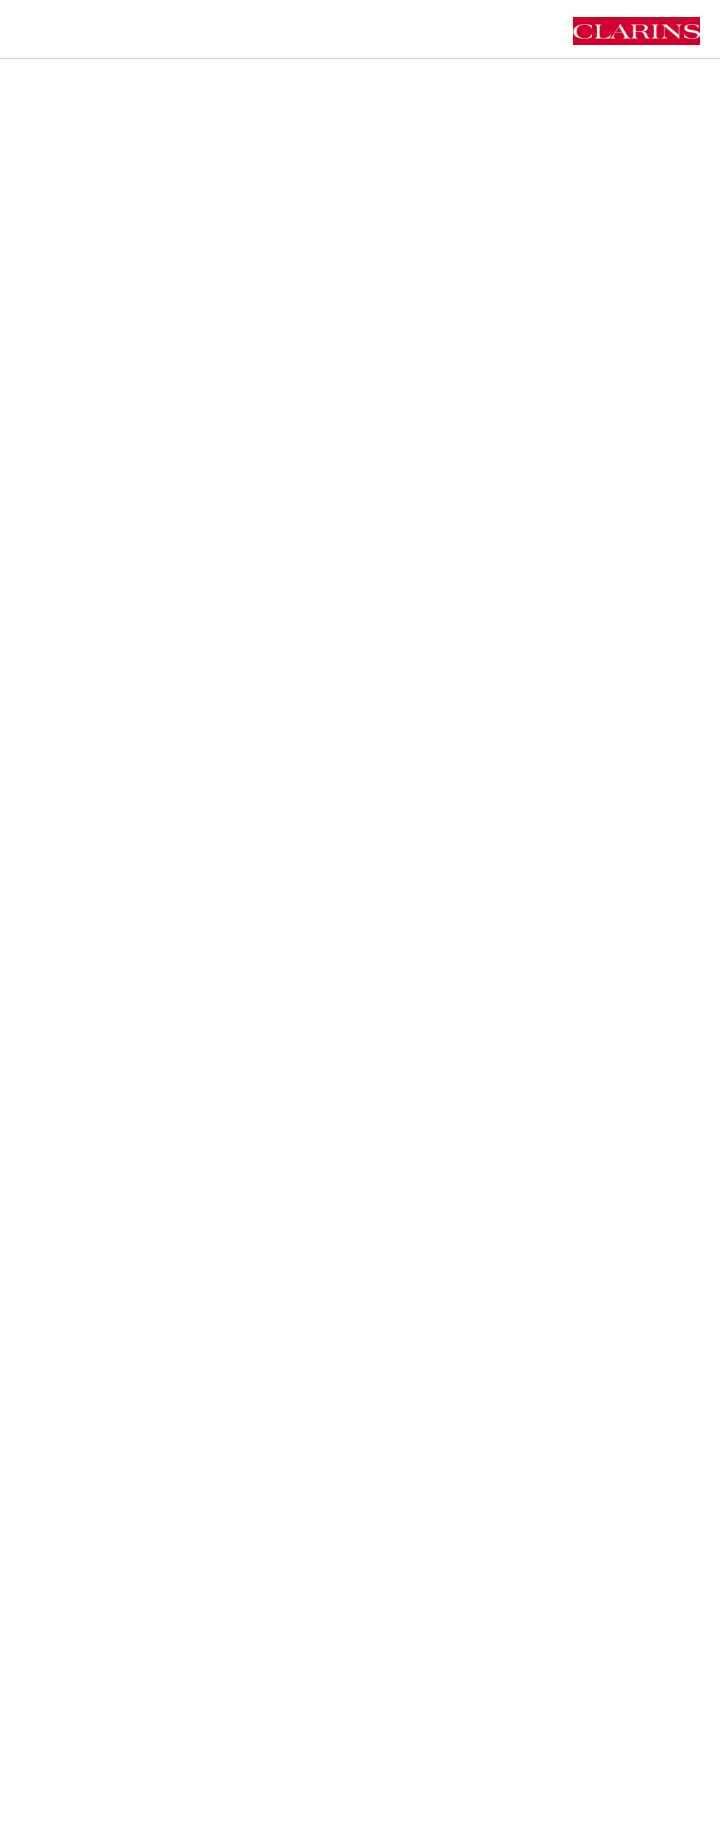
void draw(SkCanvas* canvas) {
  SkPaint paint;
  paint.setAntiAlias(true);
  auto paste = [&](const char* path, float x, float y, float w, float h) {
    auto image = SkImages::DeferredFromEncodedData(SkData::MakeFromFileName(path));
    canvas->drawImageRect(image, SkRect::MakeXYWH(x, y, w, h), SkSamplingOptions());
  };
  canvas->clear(0xffffffff);
  paint.setColor(0xffcccccc);
  canvas->drawRect(SkRect::MakeXYWH(0, 58, 720, 1), paint);
  paste("img/1.png", 573, 17, 127, 28);
}
